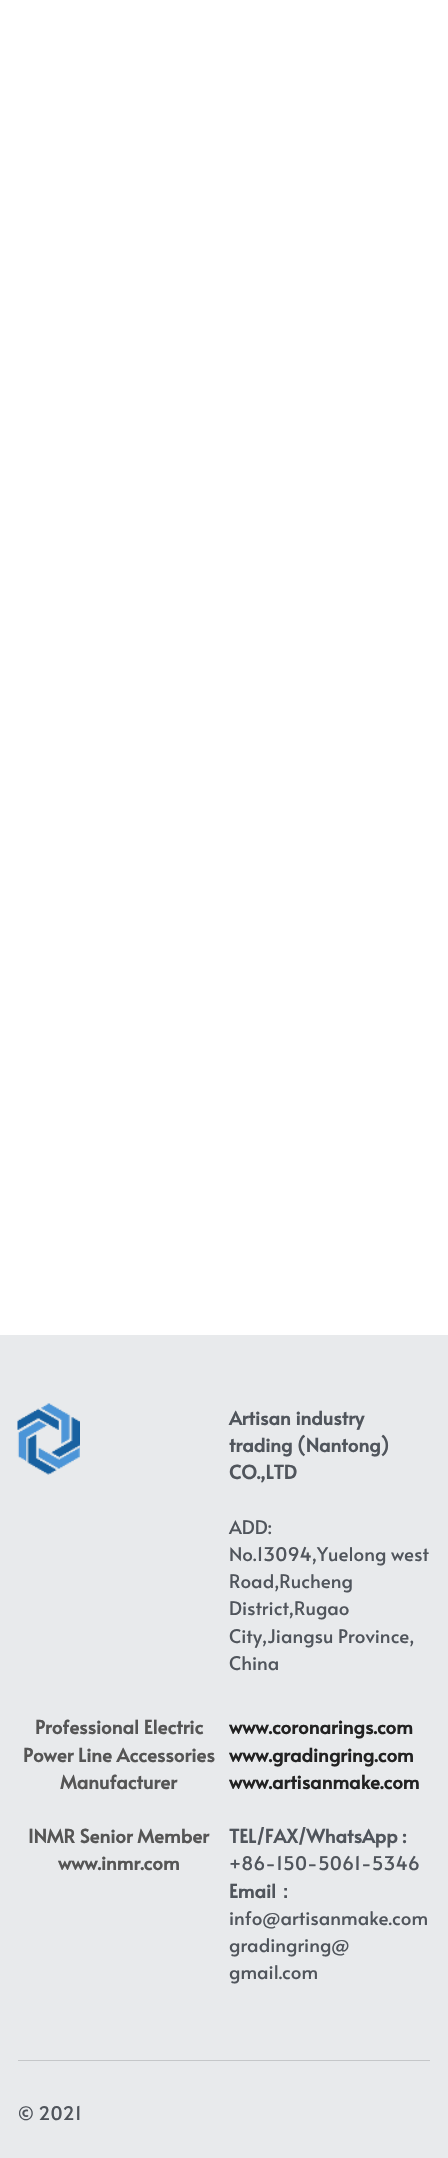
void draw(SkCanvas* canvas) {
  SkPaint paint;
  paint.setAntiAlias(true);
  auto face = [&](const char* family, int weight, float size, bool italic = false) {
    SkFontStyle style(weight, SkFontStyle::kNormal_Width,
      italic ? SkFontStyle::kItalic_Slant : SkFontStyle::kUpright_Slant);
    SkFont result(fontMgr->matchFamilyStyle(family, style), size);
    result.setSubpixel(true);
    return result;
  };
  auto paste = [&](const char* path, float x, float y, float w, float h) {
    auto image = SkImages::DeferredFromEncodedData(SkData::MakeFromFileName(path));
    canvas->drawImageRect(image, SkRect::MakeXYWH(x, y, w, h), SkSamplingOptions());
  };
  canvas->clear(0xffffffff);
  paint.setColor(0xffe8eaec);
  canvas->drawRect(SkRect::MakeXYWH(0, 1335, 448, 823), paint);
  paste("img/1.png", 17, 1403, 63, 72);
  paint.setColor(0xffc5c7c9);
  canvas->drawRect(SkRect::MakeXYWH(18, 2060, 412, 1), paint);
  auto f0 = face("Alata", 700, 18.75f);
  paint.setColor(0xff50555c);
  {
    const struct { const char* s; float x, y; } items[] = {
      {"Artisan industry", 229, 1425},
      {"trading (Nantong)", 229, 1452},
      {"CO.,LTD", 229, 1479},
    };
    for (auto [s, x, y] : items) {
      canvas->drawString(s, x, y, f0, paint);
    }
  }
  auto f1 = face("Alata", 400, 18.75f);
  {
    const struct { const char* s; float x, y; } items[] = {
      {"ADD:", 229, 1534},
      {"No.13094,Yuelong west", 229, 1561},
      {"Road,Rucheng", 229, 1588},
      {"District,Rugao", 229, 1615},
      {"City,Jiangsu Province,", 229, 1643},
      {"China", 229, 1670},
    };
    for (auto [s, x, y] : items) {
      canvas->drawString(s, x, y, f1, paint);
    }
  }
  paint.setColor(0xff555555);
  {
    const struct { const char* s; float x, y; } items[] = {
      {"Professional Electric", 35, 1734},
      {"Power Line Accessories", 23, 1762},
      {"Manufacturer", 60, 1789},
      {"INMR Senior Member", 28, 1843},
      {"www.inmr.com", 58, 1870},
    };
    for (auto [s, x, y] : items) {
      canvas->drawString(s, x, y, f0, paint);
    }
  }
  paint.setColor(0xff222222);
  {
    const struct { const char* s; float x, y; } items[] = {
      {"www.coronarings.com", 229, 1734},
      {"www.gradingring.com", 229, 1762},
      {"www.artisanmake.com", 229, 1789},
    };
    for (auto [s, x, y] : items) {
      canvas->drawString(s, x, y, f0, paint);
    }
  }
  paint.setColor(0xff50555c);
  canvas->drawString("TEL/FAX/WhatsApp :", 229, 1843, f0, paint);
  canvas->drawString("+86-150-5061-5346", 229, 1870, f1, paint);
  canvas->drawString("Email", 229, 1898, f0, paint);
  auto f2 = face("WenQuanYi Zen Hei", 700, 18.75f);
  canvas->drawString("：", 276, 1898, f2, paint);
  {
    const struct { const char* s; float x, y; } items[] = {
      {"info@artisanmake.com", 229, 1925},
      {"gradingring@", 229, 1952},
      {"gmail.com", 229, 1979},
      {"© 2021", 18, 2120},
    };
    for (auto [s, x, y] : items) {
      canvas->drawString(s, x, y, f1, paint);
    }
  }
}
